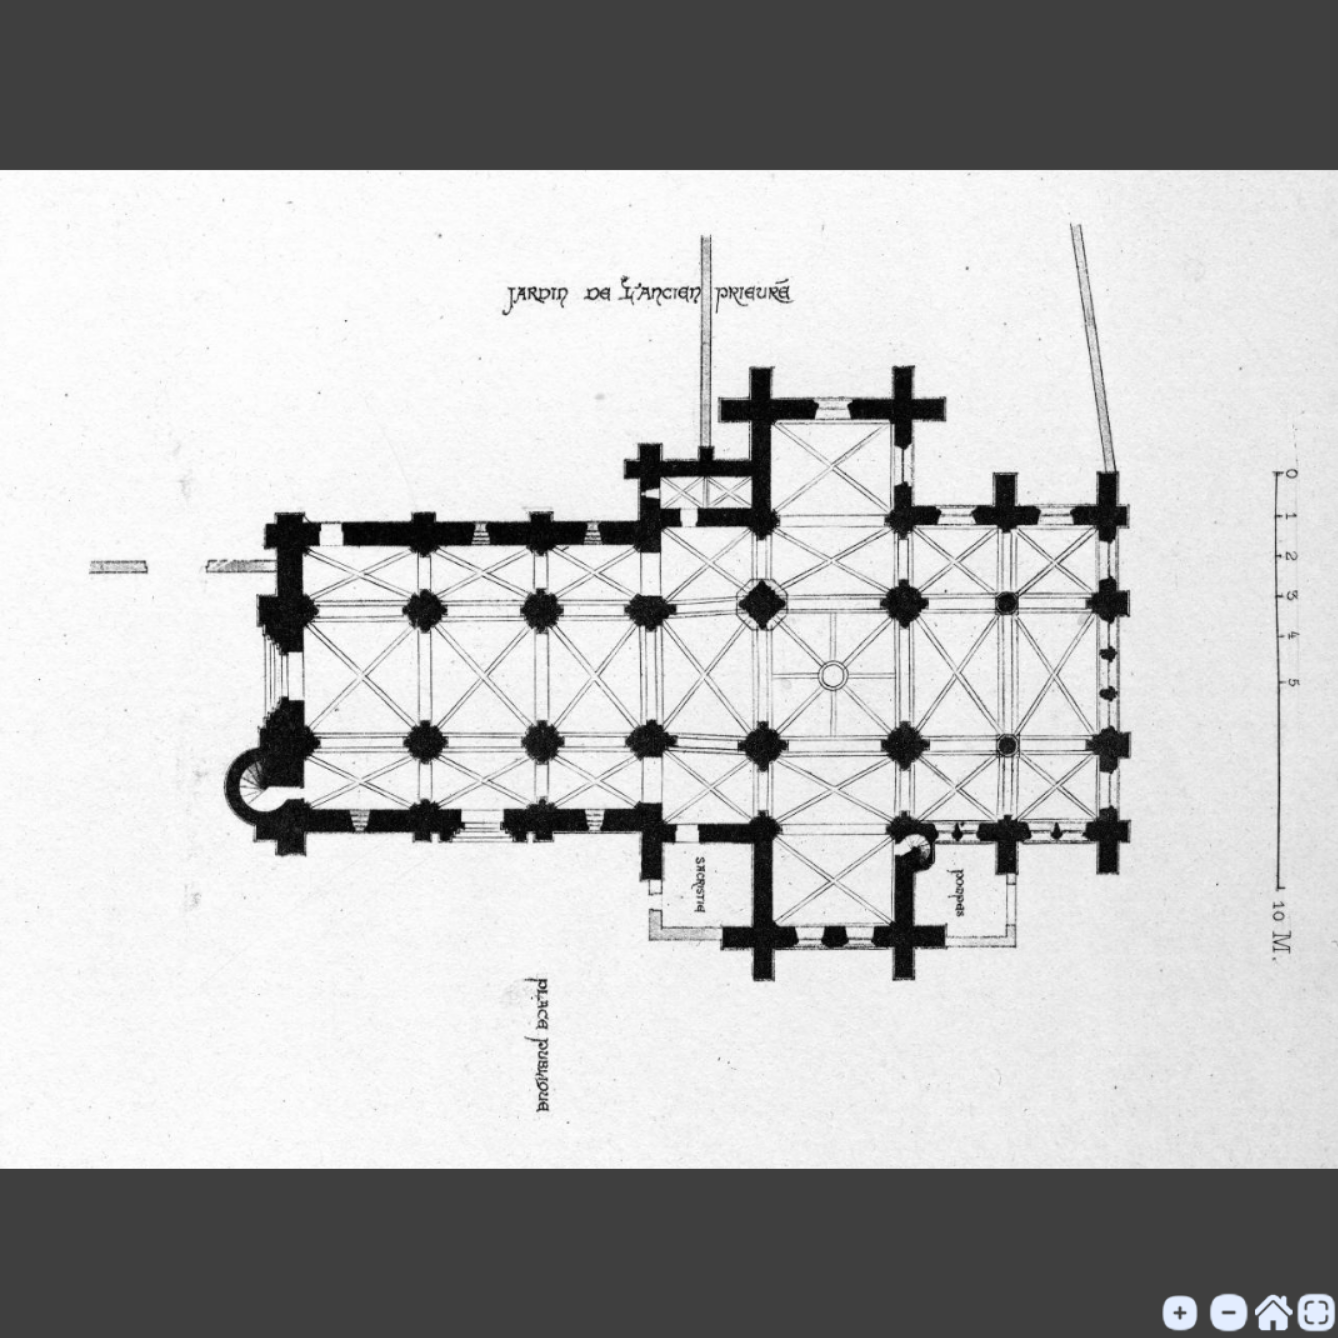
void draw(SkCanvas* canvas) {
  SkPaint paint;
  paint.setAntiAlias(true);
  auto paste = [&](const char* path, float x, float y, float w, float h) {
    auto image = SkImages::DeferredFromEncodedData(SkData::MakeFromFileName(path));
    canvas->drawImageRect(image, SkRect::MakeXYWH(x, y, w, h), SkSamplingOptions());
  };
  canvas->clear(0xff3f3f3f);
  paste("img/1.png", 0, 169, 1338, 1000);
  paste("img/2.png", 1162, 1295, 36, 37);
  paste("img/3.png", 1162, 1295, 36, 36);
  paste("img/4.png", 1209, 1292, 40, 41);
  paste("img/5.png", 1210, 1293, 38, 39);
  paste("img/6.png", 1254, 1293, 39, 39);
  paste("img/7.png", 1255, 1294, 38, 37);
  paste("img/8.png", 1296, 1292, 40, 41);
  paste("img/9.png", 1297, 1293, 39, 39);
}
